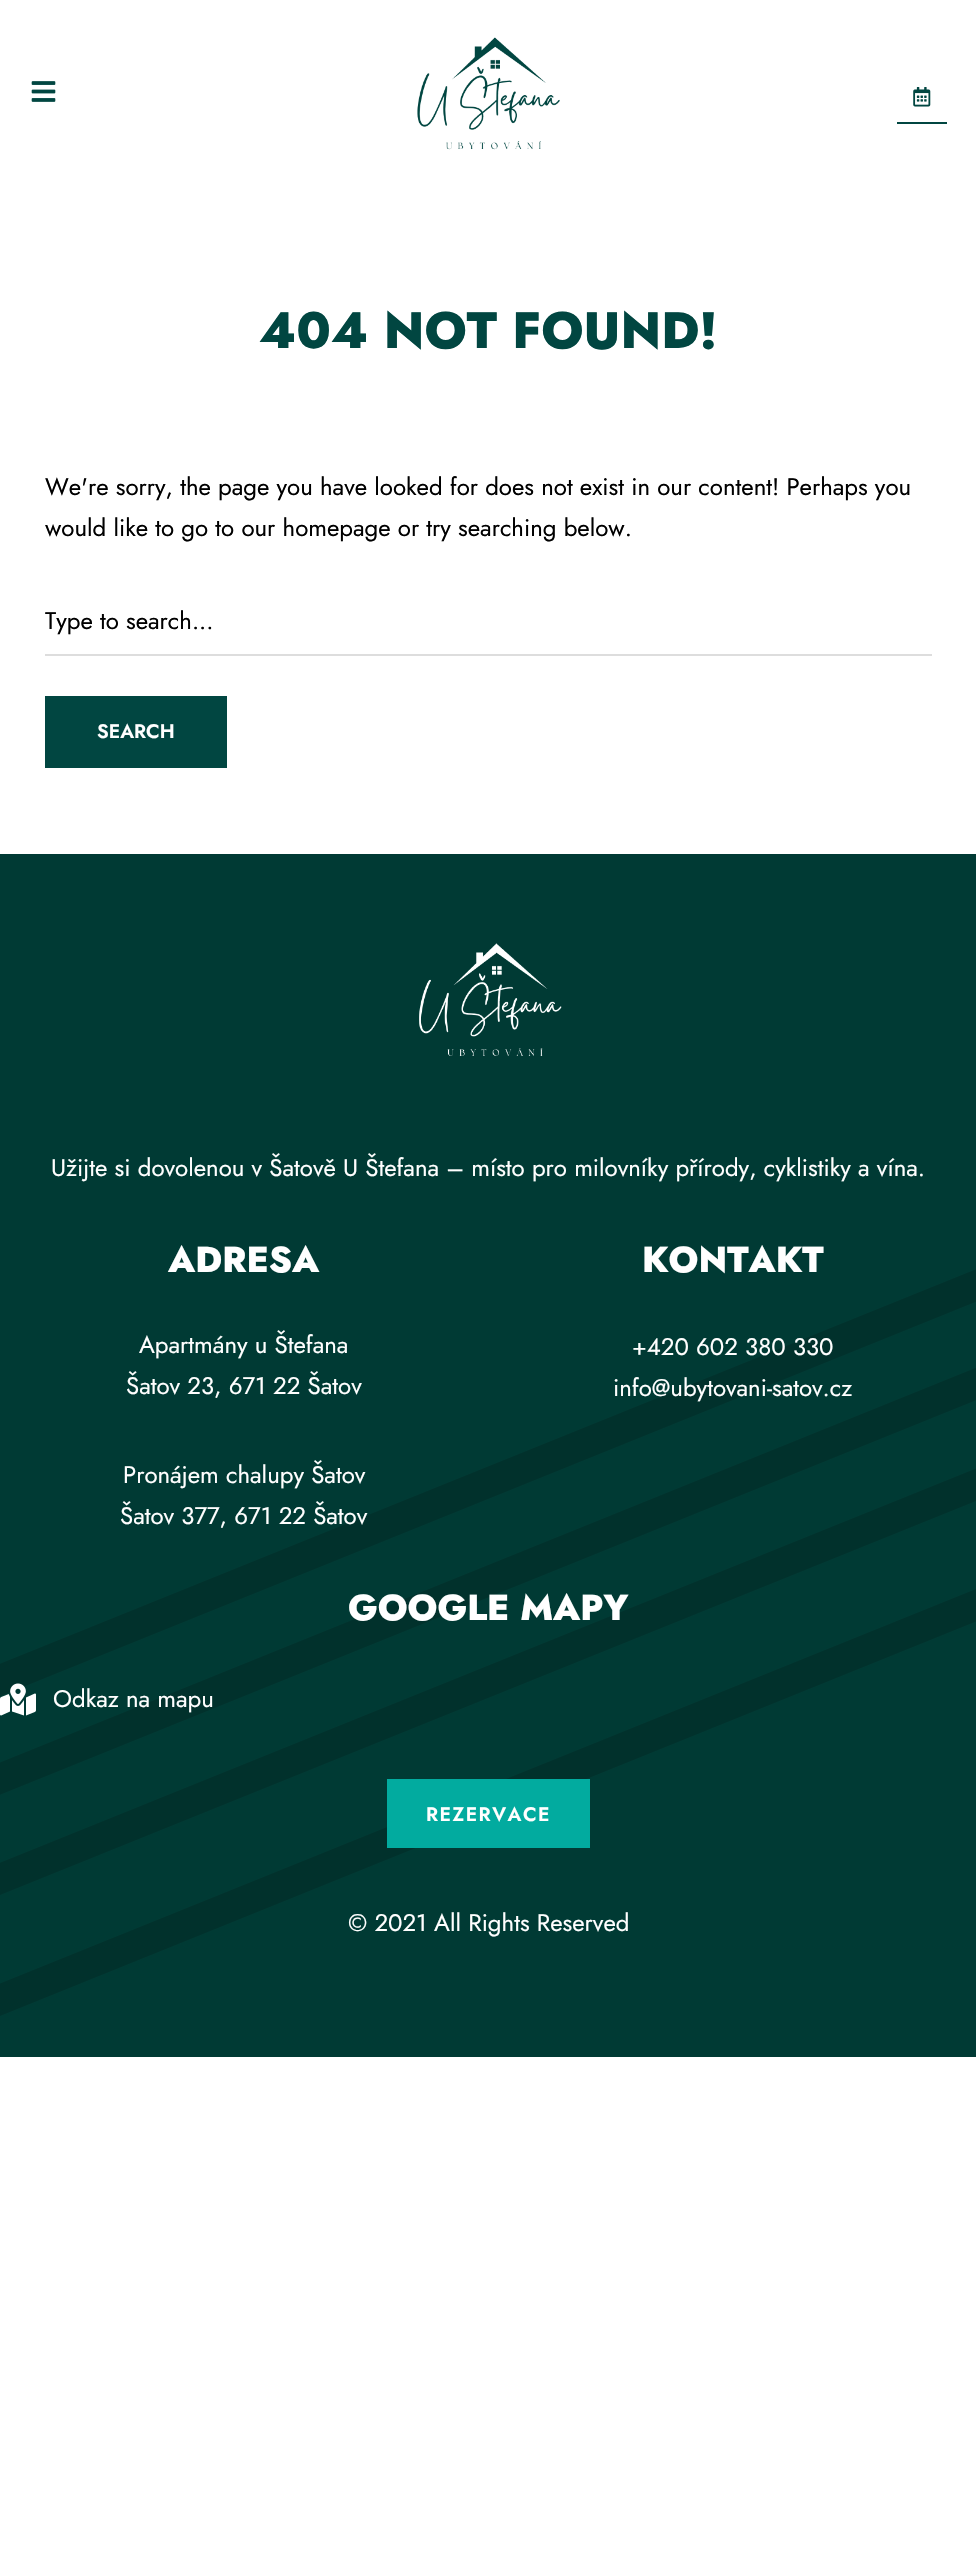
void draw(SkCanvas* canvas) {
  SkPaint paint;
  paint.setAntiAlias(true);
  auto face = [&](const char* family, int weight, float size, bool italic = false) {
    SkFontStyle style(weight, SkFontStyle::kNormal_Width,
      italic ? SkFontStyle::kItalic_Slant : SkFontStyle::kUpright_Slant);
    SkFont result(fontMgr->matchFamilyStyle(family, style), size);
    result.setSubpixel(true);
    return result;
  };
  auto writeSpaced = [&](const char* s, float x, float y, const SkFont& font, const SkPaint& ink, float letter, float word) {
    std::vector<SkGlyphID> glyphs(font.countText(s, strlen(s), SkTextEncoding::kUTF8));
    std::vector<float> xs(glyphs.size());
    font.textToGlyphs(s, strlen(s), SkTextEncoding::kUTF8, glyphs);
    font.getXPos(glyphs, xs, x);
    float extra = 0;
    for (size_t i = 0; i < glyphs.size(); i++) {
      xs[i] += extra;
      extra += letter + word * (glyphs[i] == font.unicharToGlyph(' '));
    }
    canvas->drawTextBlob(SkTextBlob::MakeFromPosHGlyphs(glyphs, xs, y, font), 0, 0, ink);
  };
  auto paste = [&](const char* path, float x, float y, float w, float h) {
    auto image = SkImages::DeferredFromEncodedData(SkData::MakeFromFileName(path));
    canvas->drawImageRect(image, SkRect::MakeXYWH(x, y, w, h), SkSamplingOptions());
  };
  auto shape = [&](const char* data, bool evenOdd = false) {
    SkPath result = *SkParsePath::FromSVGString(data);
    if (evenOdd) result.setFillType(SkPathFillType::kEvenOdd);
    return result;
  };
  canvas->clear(0xffffffff);
  paste("img/1.png", 31, 81, 25, 21);
  paste("img/2.png", 417, 37, 143, 113);
  paint.setColor(0xff014641);
  canvas->drawRect(SkRect::MakeXYWH(897, 122, 50, 2), paint);
  paste("img/3.png", 913, 87, 18, 20);
  {
    const struct { float x, y, w, h; SkColor color; } items[] = {
      {45, 654, 887, 2, 0xffdddddd},
      {45, 696, 182, 72, 0xff014641},
      {0, 854, 976, 1203, 0xff003a34},
    };
    for (auto [x, y, w, h, color] : items) {
      paint.setColor(color);
      canvas->drawRect(SkRect::MakeXYWH(x, y, w, h), paint);
    }
  }
  paste("img/4.png", 419, 943, 143, 113);
  paint.setColor(0xff01312c);
  canvas->drawPath(shape("M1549 1070L-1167 2168L-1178 2140L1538 1042Z"), paint);
  canvas->drawPath(shape("M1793 1070L-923 2168L-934 2140L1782 1042Z"), paint);
  canvas->drawPath(shape("M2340 1070L-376 2168L-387 2140L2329 1042Z"), paint);
  canvas->drawPath(shape("M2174 1017L-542 2114L-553 2086L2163 989Z"), paint);
  paste("img/5.png", 0, 1683, 36, 33);
  paint.setColor(0xff02ab9f);
  canvas->drawRect(SkRect::MakeXYWH(387, 1779, 203, 69), paint);
  auto f0 = face("Jost", 800, 51);
  paint.setColor(0xff014641);
  canvas->drawString("404 NOT FOUND!", 259, 348, f0, paint);
  auto f1 = face("Jost", 400, 24);
  paint.setColor(0xff000000);
  {
    const struct { const char* s; float x, y; } items[] = {
      {"We're sorry, the page you have looked for does not exist in our content! Perhaps you", 45, 495},
      {"would like to go to our homepage or try searching below.", 45, 536},
      {"Type to search...", 45, 629},
    };
    for (auto [s, x, y] : items) {
      canvas->drawString(s, x, y, f1, paint);
    }
  }
  auto f2 = face("Jost", 600, 19.5f);
  paint.setColor(0xffffffff);
  canvas->drawString("SEARCH", 97, 738, f2, paint);
  canvas->drawString("Užijte si dovolenou v Šatově U Štefana – místo pro milovníky přírody, cyklistiky a vína.", 51, 1176, f1, paint);
  auto f3 = face("Jost", 800, 36);
  canvas->drawString("ADRESA", 168, 1272, f3, paint);
  {
    const struct { const char* s; float x, y; } items[] = {
      {"Apartmány u Štefana", 139, 1353},
      {"Šatov 23, 671 22 Šatov", 126, 1394},
      {"Pronájem chalupy Šatov", 123, 1483},
      {"Šatov 377, 671 22 Šatov", 120, 1524},
    };
    for (auto [s, x, y] : items) {
      canvas->drawString(s, x, y, f1, paint);
    }
  }
  canvas->drawString("KONTAKT", 642, 1272, f3, paint);
  canvas->drawString("+420 602 380 330", 632, 1355, f1, paint);
  canvas->drawString("info@ubytovani-satov.cz", 613, 1396, f1, paint);
  canvas->drawString("GOOGLE MAPY", 348, 1620, f3, paint);
  canvas->drawString("Odkaz na mapu", 53, 1707, f1, paint);
  writeSpaced("REZERVACE", 426, 1821, f2, paint, 1.5f, 0);
  canvas->drawString("© 2021 All Rights Reserved", 348, 1931, f1, paint);
}
